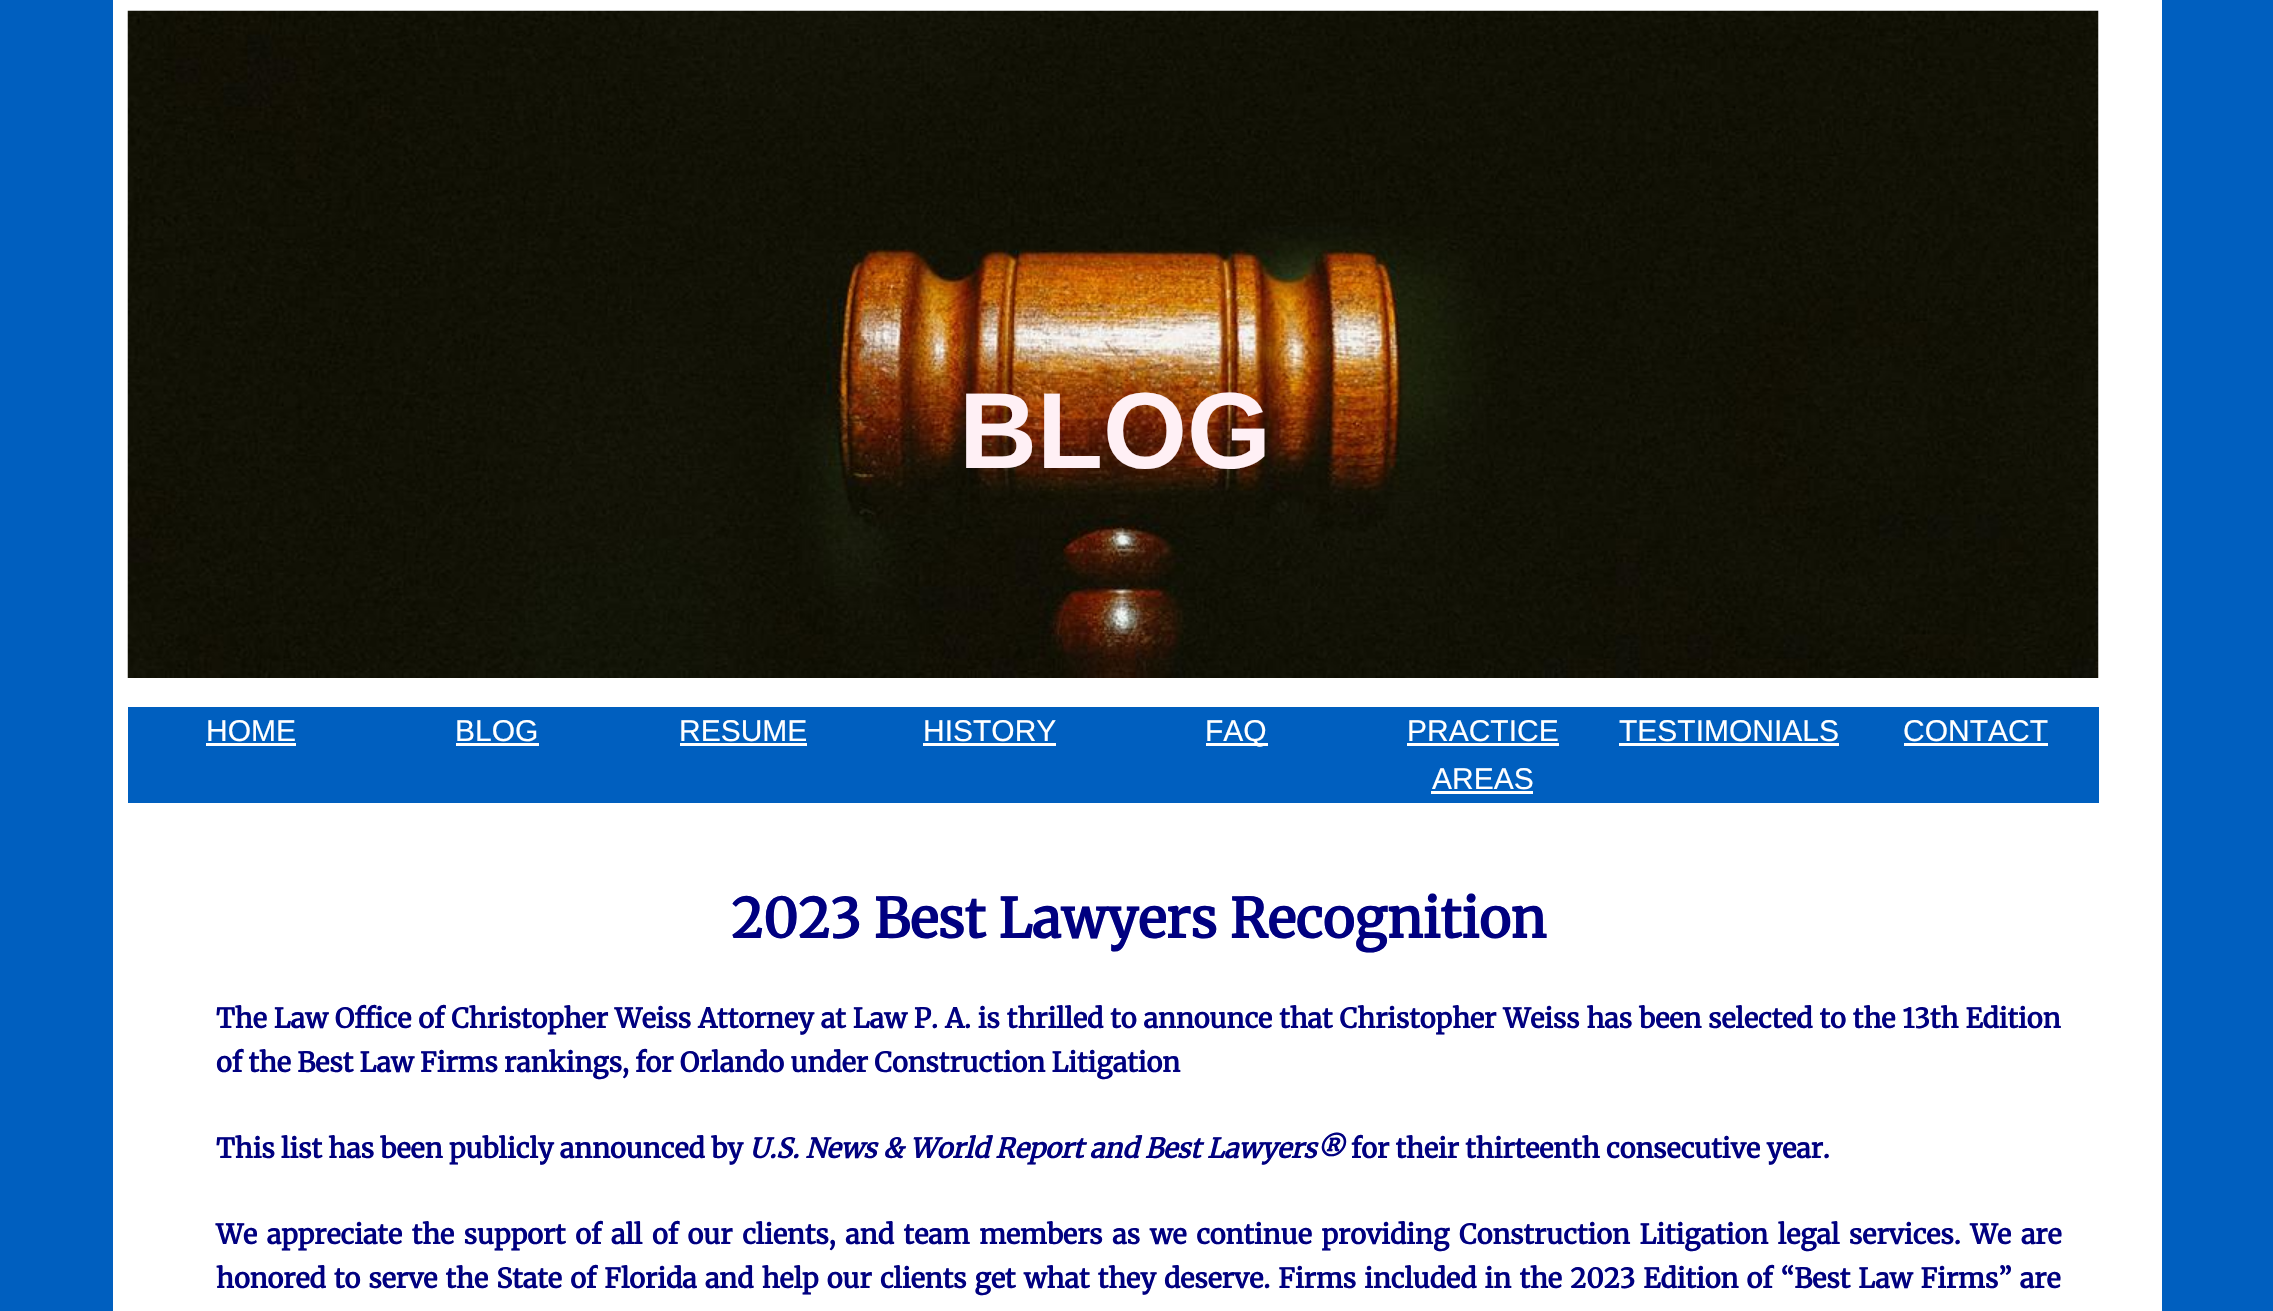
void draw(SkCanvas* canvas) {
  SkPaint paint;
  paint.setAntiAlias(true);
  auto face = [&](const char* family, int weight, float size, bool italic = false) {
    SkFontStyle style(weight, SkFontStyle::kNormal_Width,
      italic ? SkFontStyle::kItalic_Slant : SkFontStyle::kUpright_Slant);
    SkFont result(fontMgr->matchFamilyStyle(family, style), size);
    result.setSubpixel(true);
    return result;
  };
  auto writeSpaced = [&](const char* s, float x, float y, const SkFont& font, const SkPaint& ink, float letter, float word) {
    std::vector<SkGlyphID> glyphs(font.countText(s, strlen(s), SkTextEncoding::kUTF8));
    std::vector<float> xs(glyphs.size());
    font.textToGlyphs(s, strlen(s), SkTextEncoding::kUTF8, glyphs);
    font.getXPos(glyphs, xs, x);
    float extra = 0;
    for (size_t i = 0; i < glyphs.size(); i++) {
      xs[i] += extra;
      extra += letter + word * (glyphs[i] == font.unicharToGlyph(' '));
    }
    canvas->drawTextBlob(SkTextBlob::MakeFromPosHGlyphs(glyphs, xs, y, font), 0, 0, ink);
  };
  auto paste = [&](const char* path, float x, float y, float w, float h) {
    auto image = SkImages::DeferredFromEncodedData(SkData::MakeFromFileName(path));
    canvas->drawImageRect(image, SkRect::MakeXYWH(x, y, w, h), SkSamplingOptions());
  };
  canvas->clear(0xff005fbf);
  paint.setColor(0xffffffff);
  canvas->drawRect(SkRect::MakeXYWH(113, 0, 2049, 1311), paint);
  paste("img/1.png", 127, 10, 1972, 668);
  {
    const struct { float x, y, w, h; SkColor color; } items[] = {
      {128, 707, 1971, 96, 0xff005fbf},
      {206, 743, 90, 3, 0xffffffff},
      {456, 743, 83, 3, 0xffffffff},
      {680, 743, 127, 3, 0xffffffff},
      {923, 743, 133, 3, 0xffffffff},
      {1206, 743, 62, 3, 0xffffffff},
      {1407, 743, 152, 3, 0xffffffff},
      {1431, 791, 102, 3, 0xffffffff},
      {1619, 743, 220, 3, 0xffffffff},
      {1904, 743, 144, 3, 0xffffffff},
    };
    for (auto [x, y, w, h, color] : items) {
      paint.setColor(color);
      canvas->drawRect(SkRect::MakeXYWH(x, y, w, h), paint);
    }
  }
  auto f0 = face("Liberation Sans", 700, 108);
  paint.setColor(0xfffff0f5);
  canvas->drawString("BLOG", 959, 468, f0, paint);
  auto f1 = face("Liberation Sans", 400, 30);
  paint.setColor(0xffffffff);
  {
    const struct { const char* s; float x, y; } items[] = {
      {"HOME", 206, 741},
      {"BLOG", 455, 741},
      {"RESUME", 679, 741},
      {"HISTORY", 923, 741},
      {"FAQ", 1205, 741},
      {"PRACTICE", 1407, 741},
      {"AREAS", 1432, 789},
      {"TESTIMONIALS", 1619, 741},
      {"CONTACT", 1903, 741},
    };
    for (auto [s, x, y] : items) {
      canvas->drawString(s, x, y, f1, paint);
    }
  }
  auto f2 = face("Merriweather", 700, 54);
  paint.setColor(0xff000080);
  canvas->drawString("2023 Best Lawyers Recognition", 731, 938, f2, paint);
  auto f3 = face("Merriweather", 700, 27);
  writeSpaced("The Law Office of Christopher Weiss Attorney at Law P. A. is thrilled to announce that Christopher Weiss has been selected to the 13th Edition", 216, 1028, f3, paint, 0, 0.6f);
  canvas->drawString("of the Best Law Firms rankings, for Orlando under Construction Litigation", 216, 1072, f3, paint);
  canvas->drawString("This list has been publicly announced by", 216, 1158, f3, paint);
  auto f4 = face("Merriweather", 700, 27, true);
  canvas->drawString("U.S. News & World Report and Best Lawyers®", 749, 1158, f4, paint);
  canvas->drawString("for their thirteenth consecutive year.", 1351, 1158, f3, paint);
  writeSpaced("We appreciate the support of all of our clients, and team members as we continue providing Construction Litigation legal services. We are", 216, 1244, f3, paint, 0, 3.3f);
  writeSpaced("honored to serve the State of Florida and help our clients get what they deserve. Firms included in the 2023 Edition of “Best Law Firms” are", 216, 1288, f3, paint, 0, 1.8f);
}
